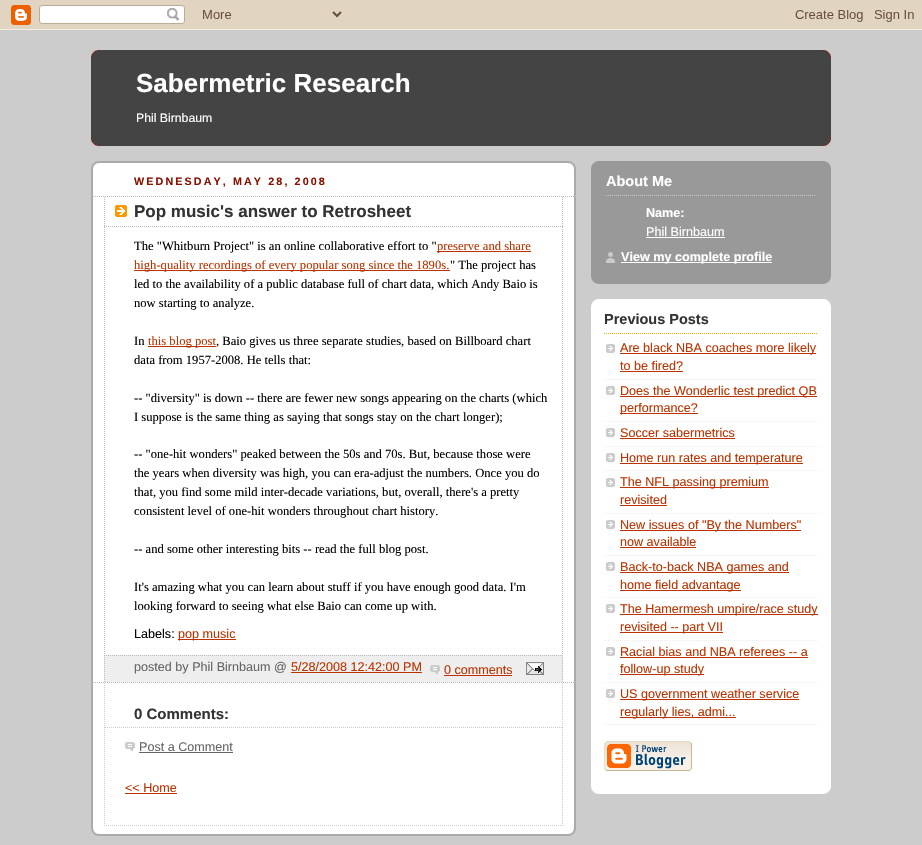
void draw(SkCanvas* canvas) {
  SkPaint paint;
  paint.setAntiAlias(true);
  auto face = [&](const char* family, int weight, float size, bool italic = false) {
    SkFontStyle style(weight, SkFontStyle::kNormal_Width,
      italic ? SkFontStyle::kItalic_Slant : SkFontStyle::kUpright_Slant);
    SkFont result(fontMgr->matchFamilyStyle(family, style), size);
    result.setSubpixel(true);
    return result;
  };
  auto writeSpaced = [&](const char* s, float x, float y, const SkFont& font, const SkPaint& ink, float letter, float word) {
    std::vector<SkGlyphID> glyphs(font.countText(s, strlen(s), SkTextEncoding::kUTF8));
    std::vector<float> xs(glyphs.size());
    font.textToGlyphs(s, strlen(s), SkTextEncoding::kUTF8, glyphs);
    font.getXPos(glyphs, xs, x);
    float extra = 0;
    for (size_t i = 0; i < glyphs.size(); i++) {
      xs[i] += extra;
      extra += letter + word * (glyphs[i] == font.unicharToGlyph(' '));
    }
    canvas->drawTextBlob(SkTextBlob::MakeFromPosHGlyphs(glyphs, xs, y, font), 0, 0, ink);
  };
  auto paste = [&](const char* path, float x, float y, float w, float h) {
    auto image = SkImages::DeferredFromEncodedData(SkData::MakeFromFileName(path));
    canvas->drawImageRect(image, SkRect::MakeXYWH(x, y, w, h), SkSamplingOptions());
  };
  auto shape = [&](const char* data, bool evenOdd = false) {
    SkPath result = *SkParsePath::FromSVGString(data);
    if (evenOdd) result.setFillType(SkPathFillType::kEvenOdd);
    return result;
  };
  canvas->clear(0xffcccccc);
  paste("img/1.png", 0, 0, 922, 30);
  paint.setColor(0xff444444);
  canvas->drawRect(SkRect::MakeXYWH(91, 50, 740, 96), paint);
  paste("img/2.png", 91, 50, 740, 8);
  paste("img/3.png", 91, 138, 740, 8);
  paint.setColor(0xffffffff);
  canvas->drawRect(SkRect::MakeXYWH(93, 163, 481, 671), paint);
  paste("img/4.png", 91, 786, 485, 50);
  paste("img/5.png", 91, 161, 485, 50);
  paste("img/6.png", 91, 211, 485, 575);
  paint.setStroke(true);
  paint.setStrokeWidth(1);
  paint.setColor(0xffbbbbbb);
  paint.setPathEffect(SkDashPathEffect::Make({{1, 1}}, 0));
  canvas->drawPath(shape("M91 196.5H576"), paint);
  paint.setPathEffect(nullptr);
  paint.setPathEffect(SkDashPathEffect::Make({{1, 1}}, 0));
  canvas->drawPath(shape("M91 682.5H576"), paint);
  paint.setPathEffect(nullptr);
  paste("img/7.png", 115, 205, 12, 12);
  paint.setPathEffect(SkDashPathEffect::Make({{1, 1}}, 0));
  canvas->drawPath(shape("M562.5 197V227"), paint);
  paint.setPathEffect(nullptr);
  paint.setPathEffect(SkDashPathEffect::Make({{1, 1}}, 0));
  canvas->drawPath(shape("M104 226.5H563"), paint);
  paint.setPathEffect(nullptr);
  paint.setPathEffect(SkDashPathEffect::Make({{1, 1}}, 0));
  canvas->drawPath(shape("M104.5 197V227"), paint);
  paint.setPathEffect(nullptr);
  paint.setPathEffect(SkDashPathEffect::Make({{1, 1}}, 0));
  canvas->drawPath(shape("M562.5 227V655"), paint);
  paint.setPathEffect(nullptr);
  paint.setPathEffect(SkDashPathEffect::Make({{1, 1}}, 0));
  canvas->drawPath(shape("M104.5 227V655"), paint);
  paint.setPathEffect(nullptr);
  paint.setStroke(false);
  {
    const struct { float x, y, w, h; SkColor color; } items[] = {
      {437, 251, 94, 1, 0xffbb3300},
      {134, 270, 316, 1, 0xffbb3300},
      {148, 346, 68, 1, 0xffbb3300},
      {178, 639, 58, 1, 0xffbb3300},
      {104, 655, 459, 27, 0xffeeeeee},
    };
    for (auto [x, y, w, h, color] : items) {
      paint.setColor(color);
      canvas->drawRect(SkRect::MakeXYWH(x, y, w, h), paint);
    }
  }
  paint.setStroke(true);
  paint.setColor(0xffbbbbbb);
  paint.setPathEffect(SkDashPathEffect::Make({{1, 1}}, 0));
  canvas->drawPath(shape("M104 655.5H563"), paint);
  paint.setPathEffect(nullptr);
  paint.setPathEffect(SkDashPathEffect::Make({{1, 1}}, 0));
  canvas->drawPath(shape("M562.5 655V682"), paint);
  paint.setPathEffect(nullptr);
  paint.setPathEffect(SkDashPathEffect::Make({{1, 1}}, 0));
  canvas->drawPath(shape("M104.5 655V682"), paint);
  paint.setPathEffect(nullptr);
  paint.setStroke(false);
  paint.setColor(0xffbb3300);
  canvas->drawRect(SkRect::MakeXYWH(291, 672, 131, 1), paint);
  paste("img/8.png", 430, 665, 10, 9);
  canvas->drawRect(SkRect::MakeXYWH(444, 675, 68, 1), paint);
  paste("img/9.png", 526, 662, 18, 13);
  paint.setStroke(true);
  paint.setColor(0xffcccccc);
  paint.setPathEffect(SkDashPathEffect::Make({{1, 1}}, 0));
  canvas->drawPath(shape("M562.5 683V826"), paint);
  paint.setPathEffect(nullptr);
  paint.setPathEffect(SkDashPathEffect::Make({{1, 1}}, 0));
  canvas->drawPath(shape("M104 825.5H563"), paint);
  paint.setPathEffect(nullptr);
  paint.setPathEffect(SkDashPathEffect::Make({{1, 1}}, 0));
  canvas->drawPath(shape("M104.5 683V826"), paint);
  paint.setPathEffect(nullptr);
  paint.setPathEffect(SkDashPathEffect::Make({{1, 1}}, 0));
  canvas->drawPath(shape("M105 727.5H562"), paint);
  paint.setPathEffect(nullptr);
  paste("img/10.png", 125, 742, 10, 9);
  paint.setStroke(false);
  {
    const struct { float x, y, w, h; SkColor color; } items[] = {
      {139, 752, 94, 1, 0xff666666},
      {125, 793, 52, 1, 0xffbb3300},
      {591, 161, 240, 123, 0xff999999},
    };
    for (auto [x, y, w, h, color] : items) {
      paint.setColor(color);
      canvas->drawRect(SkRect::MakeXYWH(x, y, w, h), paint);
    }
  }
  paste("img/11.png", 591, 277, 240, 7);
  paste("img/12.png", 591, 161, 240, 7);
  paint.setStroke(true);
  paint.setColor(0xffcccccc);
  paint.setPathEffect(SkDashPathEffect::Make({{1, 1}}, 0));
  canvas->drawPath(shape("M606 195.5H816"), paint);
  paint.setPathEffect(nullptr);
  paint.setStroke(false);
  paint.setColor(0xffffffff);
  canvas->drawRect(SkRect::MakeXYWH(646, 237, 79, 1), paint);
  paste("img/13.png", 606, 252, 9, 11);
  canvas->drawRect(SkRect::MakeXYWH(621, 262, 151, 1), paint);
  canvas->drawRect(SkRect::MakeXYWH(591, 299, 240, 495), paint);
  paste("img/14.png", 591, 299, 240, 7);
  paste("img/15.png", 591, 787, 240, 7);
  paint.setStroke(true);
  paint.setColor(0xffffaa00);
  paint.setPathEffect(SkDashPathEffect::Make({{1, 1}}, 0));
  canvas->drawPath(shape("M604 333.5H818"), paint);
  paint.setPathEffect(nullptr);
  paste("img/16.png", 606, 344, 9, 9);
  paint.setColor(0xffeeeeee);
  paint.setPathEffect(SkDashPathEffect::Make({{1, 1}}, 0));
  canvas->drawPath(shape("M604 379.5H818"), paint);
  paint.setPathEffect(nullptr);
  paint.setStroke(false);
  paint.setColor(0xffbb3300);
  canvas->drawRect(SkRect::MakeXYWH(620, 353, 196, 1), paint);
  canvas->drawRect(SkRect::MakeXYWH(620, 371, 63, 1), paint);
  paste("img/16.png", 606, 386, 9, 9);
  paint.setStroke(true);
  paint.setColor(0xffeeeeee);
  paint.setPathEffect(SkDashPathEffect::Make({{1, 1}}, 0));
  canvas->drawPath(shape("M604 421.5H818"), paint);
  paint.setPathEffect(nullptr);
  paint.setStroke(false);
  paint.setColor(0xffbb3300);
  canvas->drawRect(SkRect::MakeXYWH(620, 396, 197, 1), paint);
  canvas->drawRect(SkRect::MakeXYWH(620, 413, 78, 1), paint);
  paste("img/16.png", 606, 428, 9, 9);
  paint.setStroke(true);
  paint.setColor(0xffeeeeee);
  paint.setPathEffect(SkDashPathEffect::Make({{1, 1}}, 0));
  canvas->drawPath(shape("M604 446.5H818"), paint);
  paint.setPathEffect(nullptr);
  paint.setStroke(false);
  paint.setColor(0xffbb3300);
  canvas->drawRect(SkRect::MakeXYWH(620, 438, 115, 1), paint);
  paste("img/16.png", 606, 453, 9, 9);
  paint.setStroke(true);
  paint.setColor(0xffeeeeee);
  paint.setPathEffect(SkDashPathEffect::Make({{1, 1}}, 0));
  canvas->drawPath(shape("M604 470.5H818"), paint);
  paint.setPathEffect(nullptr);
  paint.setStroke(false);
  paint.setColor(0xffbb3300);
  canvas->drawRect(SkRect::MakeXYWH(620, 463, 183, 1), paint);
  paste("img/16.png", 606, 478, 9, 9);
  paint.setStroke(true);
  paint.setColor(0xffeeeeee);
  paint.setPathEffect(SkDashPathEffect::Make({{1, 1}}, 0));
  canvas->drawPath(shape("M604 513.5H818"), paint);
  paint.setPathEffect(nullptr);
  paint.setStroke(false);
  paint.setColor(0xffbb3300);
  canvas->drawRect(SkRect::MakeXYWH(620, 487, 149, 1), paint);
  canvas->drawRect(SkRect::MakeXYWH(620, 505, 47, 1), paint);
  paste("img/16.png", 606, 520, 9, 9);
  paint.setStroke(true);
  paint.setColor(0xffeeeeee);
  paint.setPathEffect(SkDashPathEffect::Make({{1, 1}}, 0));
  canvas->drawPath(shape("M604 555.5H818"), paint);
  paint.setPathEffect(nullptr);
  paint.setStroke(false);
  paint.setColor(0xffbb3300);
  canvas->drawRect(SkRect::MakeXYWH(620, 530, 181, 1), paint);
  canvas->drawRect(SkRect::MakeXYWH(620, 547, 76, 1), paint);
  paste("img/16.png", 606, 562, 9, 9);
  paint.setStroke(true);
  paint.setColor(0xffeeeeee);
  paint.setPathEffect(SkDashPathEffect::Make({{1, 1}}, 0));
  canvas->drawPath(shape("M604 597.5H818"), paint);
  paint.setPathEffect(nullptr);
  paint.setStroke(false);
  paint.setColor(0xffbb3300);
  canvas->drawRect(SkRect::MakeXYWH(620, 572, 169, 1), paint);
  canvas->drawRect(SkRect::MakeXYWH(620, 590, 121, 1), paint);
  paste("img/16.png", 606, 604, 9, 9);
  paint.setStroke(true);
  paint.setColor(0xffeeeeee);
  paint.setPathEffect(SkDashPathEffect::Make({{1, 1}}, 0));
  canvas->drawPath(shape("M604 640.5H818"), paint);
  paint.setPathEffect(nullptr);
  paint.setStroke(false);
  paint.setColor(0xffbb3300);
  canvas->drawRect(SkRect::MakeXYWH(620, 614, 198, 1), paint);
  canvas->drawRect(SkRect::MakeXYWH(620, 632, 103, 1), paint);
  paste("img/16.png", 606, 647, 9, 9);
  paint.setStroke(true);
  paint.setColor(0xffeeeeee);
  paint.setPathEffect(SkDashPathEffect::Make({{1, 1}}, 0));
  canvas->drawPath(shape("M604 682.5H818"), paint);
  paint.setPathEffect(nullptr);
  paint.setStroke(false);
  paint.setColor(0xffbb3300);
  canvas->drawRect(SkRect::MakeXYWH(620, 657, 188, 1), paint);
  canvas->drawRect(SkRect::MakeXYWH(620, 674, 84, 1), paint);
  paste("img/16.png", 606, 689, 9, 9);
  paint.setStroke(true);
  paint.setColor(0xffeeeeee);
  paint.setPathEffect(SkDashPathEffect::Make({{1, 1}}, 0));
  canvas->drawPath(shape("M604 724.5H818"), paint);
  paint.setPathEffect(nullptr);
  paint.setStroke(false);
  paint.setColor(0xffbb3300);
  canvas->drawRect(SkRect::MakeXYWH(620, 699, 179, 1), paint);
  canvas->drawRect(SkRect::MakeXYWH(620, 717, 116, 1), paint);
  paste("img/17.png", 604, 741, 88, 30);
  auto f0 = face("Liberation Sans", 700, 26);
  paint.setColor(0xffffffff);
  canvas->drawString("Sabermetric Research", 136, 92, f0, paint);
  auto f1 = face("Liberation Sans", 400, 12.25f);
  canvas->drawString("Phil Birnbaum", 136, 122, f1, paint);
  auto f2 = face("Liberation Sans", 700, 10.75f);
  paint.setColor(0xff881100);
  writeSpaced("WEDNESDAY, MAY 28, 2008", 134, 185, f2, paint, 2.1f, 0);
  auto f3 = face("Liberation Sans", 700, 17);
  paint.setColor(0xff333333);
  canvas->drawString("Pop music's answer to Retrosheet", 134, 217, f3, paint);
  auto f4 = face("Liberation Serif", 400, 12.6f);
  paint.setColor(0xff000000);
  canvas->drawString("The \"Whitburn Project\" is an online collaborative effort to \"", 134, 250, f4, paint);
  paint.setColor(0xffbb3300);
  canvas->drawString("preserve and share", 437, 250, f4, paint);
  canvas->drawString("high-quality recordings of every popular song since the 1890s.", 134, 269, f4, paint);
  paint.setColor(0xff000000);
  {
    const struct { const char* s; float x, y; } items[] = {
      {"\" The project has", 450, 269},
      {"led to the availability of a public database full of chart data, which Andy Baio is", 134, 288},
      {"now starting to analyze.", 134, 307},
      {"In", 134, 345},
    };
    for (auto [s, x, y] : items) {
      canvas->drawString(s, x, y, f4, paint);
    }
  }
  paint.setColor(0xffbb3300);
  canvas->drawString("this blog post", 148, 345, f4, paint);
  paint.setColor(0xff000000);
  {
    const struct { const char* s; float x, y; } items[] = {
      {", Baio gives us three separate studies, based on Billboard chart", 216, 345},
      {"data from 1957-2008. He tells that:", 134, 364},
      {"-- \"diversity\" is down -- there are fewer new songs appearing on the charts (which", 134, 402},
      {"I suppose is the same thing as saying that songs stay on the chart longer);", 134, 421},
      {"-- \"one-hit wonders\" peaked between the 50s and 70s. But, because those were", 134, 458},
      {"the years when diversity was high, you can era-adjust the numbers. Once you do", 134, 477},
      {"that, you find some mild inter-decade variations, but, overall, there's a pretty", 134, 496},
      {"consistent level of one-hit wonders throughout chart history.", 134, 515},
      {"-- and some other interesting bits -- read the full blog post.", 134, 553},
      {"It's amazing what you can learn about stuff if you have enough good data. I'm", 134, 591},
      {"looking forward to seeing what else Baio can come up with.", 134, 610},
    };
    for (auto [s, x, y] : items) {
      canvas->drawString(s, x, y, f4, paint);
    }
  }
  auto f5 = face("Liberation Sans", 400, 12.6f);
  canvas->drawString("Labels:", 134, 638, f5, paint);
  paint.setColor(0xffbb3300);
  canvas->drawString("pop music", 178, 638, f5, paint);
  paint.setColor(0xff666666);
  canvas->drawString("posted by Phil Birnbaum @", 134, 671, f5, paint);
  paint.setColor(0xffbb3300);
  canvas->drawString("5/28/2008 12:42:00 PM", 291, 671, f5, paint);
  canvas->drawString("0 comments", 444, 674, f5, paint);
  auto f6 = face("Liberation Sans", 700, 15);
  paint.setColor(0xff333333);
  canvas->drawString("0 Comments:", 134, 719, f6, paint);
  paint.setColor(0xff666666);
  canvas->drawString("Post a Comment", 139, 751, f5, paint);
  paint.setColor(0xffbb3300);
  canvas->drawString("<< Home", 125, 792, f5, paint);
  auto f7 = face("Liberation Sans", 700, 14.5f);
  paint.setColor(0xffffffff);
  canvas->drawString("About Me", 606, 186, f7, paint);
  auto f8 = face("Liberation Sans", 700, 12.6f);
  canvas->drawString("Name:", 646, 217, f8, paint);
  canvas->drawString("Phil Birnbaum", 646, 236, f5, paint);
  canvas->drawString("View my complete profile", 621, 261, f8, paint);
  paint.setColor(0xff333333);
  canvas->drawString("Previous Posts", 604, 324, f7, paint);
  paint.setColor(0xffbb3300);
  {
    const struct { const char* s; float x, y; } items[] = {
      {"Are black NBA coaches more likely", 620, 352},
      {"to be fired?", 620, 370},
      {"Does the Wonderlic test predict QB", 620, 395},
      {"performance?", 620, 412},
      {"Soccer sabermetrics", 620, 437},
      {"Home run rates and temperature", 620, 462},
      {"The NFL passing premium", 620, 486},
      {"revisited", 620, 504},
      {"New issues of \"By the Numbers\"", 620, 529},
      {"now available", 620, 546},
      {"Back-to-back NBA games and", 620, 571},
      {"home field advantage", 620, 589},
      {"The Hamermesh umpire/race study", 620, 613},
      {"revisited -- part VII", 620, 631},
      {"Racial bias and NBA referees -- a", 620, 656},
      {"follow-up study", 620, 673},
      {"US government weather service", 620, 698},
      {"regularly lies, admi...", 620, 716},
    };
    for (auto [s, x, y] : items) {
      canvas->drawString(s, x, y, f5, paint);
    }
  }
}
